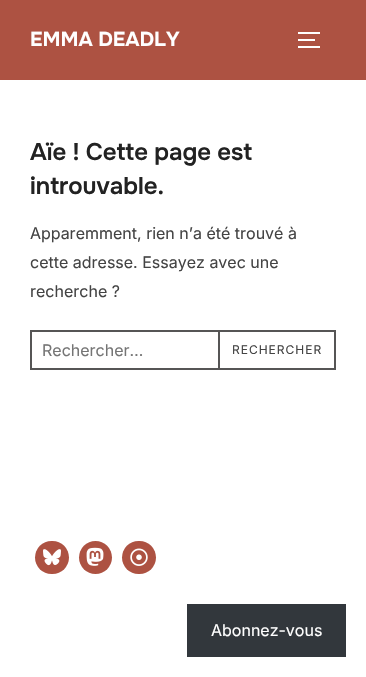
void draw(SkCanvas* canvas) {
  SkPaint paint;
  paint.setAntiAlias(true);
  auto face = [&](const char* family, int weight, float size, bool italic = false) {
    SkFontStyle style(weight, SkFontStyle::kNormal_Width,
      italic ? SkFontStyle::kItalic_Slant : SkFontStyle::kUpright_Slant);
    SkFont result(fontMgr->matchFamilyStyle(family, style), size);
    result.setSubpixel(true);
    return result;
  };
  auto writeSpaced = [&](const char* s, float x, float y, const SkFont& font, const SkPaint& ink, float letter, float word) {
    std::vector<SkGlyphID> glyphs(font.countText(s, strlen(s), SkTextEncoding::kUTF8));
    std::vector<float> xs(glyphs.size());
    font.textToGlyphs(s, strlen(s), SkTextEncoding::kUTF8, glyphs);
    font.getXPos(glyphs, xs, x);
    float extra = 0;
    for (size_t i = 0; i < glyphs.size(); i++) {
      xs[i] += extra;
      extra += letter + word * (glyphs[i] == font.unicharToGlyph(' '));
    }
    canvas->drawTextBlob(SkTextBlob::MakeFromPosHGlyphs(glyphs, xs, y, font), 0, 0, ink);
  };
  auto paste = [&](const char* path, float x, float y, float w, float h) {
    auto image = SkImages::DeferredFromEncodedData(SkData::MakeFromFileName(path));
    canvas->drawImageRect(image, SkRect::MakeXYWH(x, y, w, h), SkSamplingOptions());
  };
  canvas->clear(0xffffffff);
  {
    const struct { float x, y, w, h; SkColor color; } items[] = {
      {0, 0, 366, 80, 0xffad5242},
      {298, 32, 22, 2, 0xffffffff},
      {298, 39, 17, 2, 0xffffffff},
      {298, 46, 22, 2, 0xffffffff},
    };
    for (auto [x, y, w, h, color] : items) {
      paint.setColor(color);
      canvas->drawRect(SkRect::MakeXYWH(x, y, w, h), paint);
    }
  }
  paint.setStroke(true);
  paint.setStrokeWidth(2);
  paint.setColor(0xff565555);
  canvas->drawRect(SkRect::MakeXYWH(31, 331, 304, 38), paint);
  canvas->drawRect(SkRect::MakeXYWH(219, 331, 116, 38), paint);
  paint.setStroke(false);
  paint.setColor(0xffad5242);
  canvas->drawRoundRect(SkRect::MakeXYWH(35, 541, 34, 33), 16.5f, 16.5f, paint);
  paste("img/1.png", 43, 549, 18, 17);
  canvas->drawCircle(95.5f, 557.5f, 16.5f, paint);
  paste("img/2.png", 86, 547, 18, 19);
  canvas->drawRoundRect(SkRect::MakeXYWH(122, 541, 34, 33), 16.5f, 16.5f, paint);
  paste("img/3.png", 130, 548, 18, 18);
  paint.setColor(0xff32373c);
  canvas->drawRect(SkRect::MakeXYWH(187, 604, 159, 53), paint);
  auto f0 = face("Onest", 700, 20);
  paint.setColor(0xffffffff);
  canvas->drawString("EMMA DEADLY", 30, 46, f0, paint);
  auto f1 = face("Onest", 600, 24);
  paint.setColor(0xff222222);
  writeSpaced("Aïe ! Cette page est", 30, 160, f1, paint, 0, -0.5f);
  canvas->drawString("introuvable.", 30, 194, f1, paint);
  auto f2 = face("Inter", 400, 16);
  paint.setColor(0xff444444);
  {
    const struct { const char* s; float x, y; } items[] = {
      {"Apparemment, rien n’a été trouvé à", 30, 239},
      {"cette adresse. Essayez avec une", 30, 268},
      {"recherche ?", 30, 297},
    };
    for (auto [s, x, y] : items) {
      canvas->drawString(s, x, y, f2, paint);
    }
  }
  paint.setColor(0xff757575);
  canvas->drawString("Rechercher…", 42, 356, f2, paint);
  auto f3 = face("Inter", 400, 12);
  paint.setColor(0xff444444);
  writeSpaced("RECHERCHER", 232, 354, f3, paint, 1, 0);
  paint.setColor(0xffffffff);
  canvas->drawString("Abonnez-vous", 211, 636, f2, paint);
}
